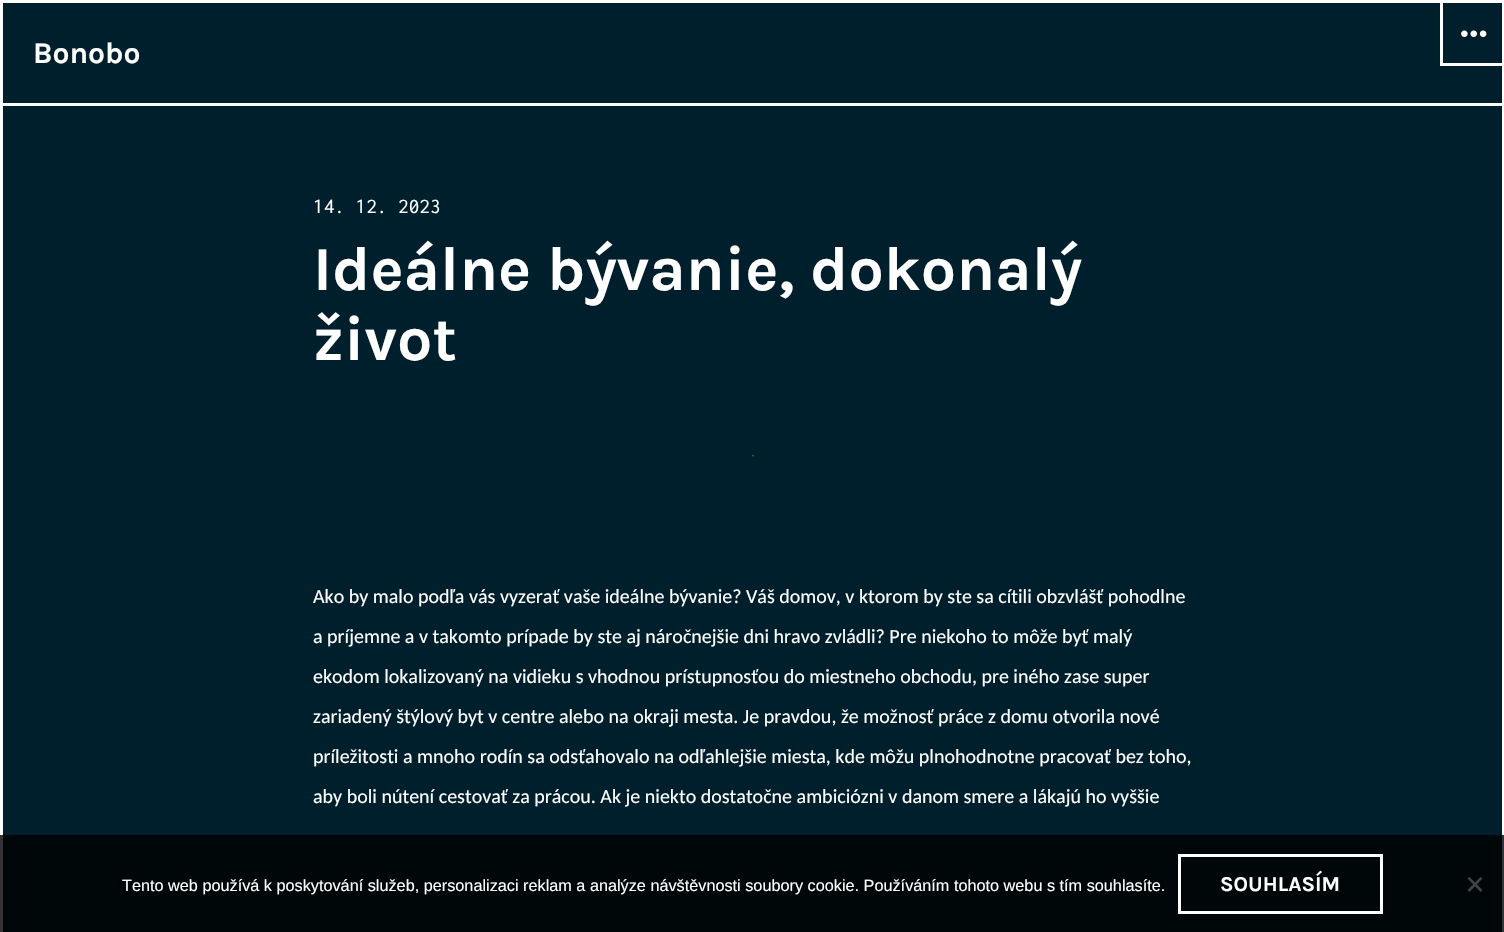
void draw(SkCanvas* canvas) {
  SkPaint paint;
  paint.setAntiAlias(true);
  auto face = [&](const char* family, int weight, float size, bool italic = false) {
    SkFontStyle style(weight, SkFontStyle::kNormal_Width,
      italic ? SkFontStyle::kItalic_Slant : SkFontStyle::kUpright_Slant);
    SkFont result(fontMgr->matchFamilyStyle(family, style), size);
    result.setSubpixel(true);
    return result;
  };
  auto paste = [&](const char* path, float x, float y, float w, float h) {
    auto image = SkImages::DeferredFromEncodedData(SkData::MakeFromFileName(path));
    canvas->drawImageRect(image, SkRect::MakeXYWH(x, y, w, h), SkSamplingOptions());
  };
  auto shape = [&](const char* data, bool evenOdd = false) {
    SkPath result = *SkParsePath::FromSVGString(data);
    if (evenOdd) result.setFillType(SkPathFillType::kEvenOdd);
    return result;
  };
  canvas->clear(0xff001f2c);
  paint.setStroke(true);
  paint.setStrokeWidth(3);
  paint.setColor(0xffffffff);
  canvas->drawRect(SkRect::MakeXYWH(1.5f, 1.5f, 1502, 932), paint);
  paint.setStroke(false);
  {
    const struct { float x, y, w, h; SkColor color; } items[] = {
      {3, 103, 1500, 3, 0xffffffff},
      {1440, 63, 63, 3, 0xffffffff},
      {1440, 3, 3, 62, 0xffffffff},
    };
    for (auto [x, y, w, h, color] : items) {
      paint.setColor(color);
      canvas->drawRect(SkRect::MakeXYWH(x, y, w, h), paint);
    }
  }
  paste("img/1.png", 1461, 30, 26, 7);
  paste("img/2.png", 752, 455, 2, 2);
  paint.setColor(0xcc000000);
  canvas->drawRect(SkRect::MakeXYWH(0, 835, 1504, 97), paint);
  paint.setStroke(true);
  paint.setColor(0xffffffff);
  canvas->drawRect(SkRect::MakeXYWH(1179.5f, 855.5f, 202, 57), paint);
  paint.setStroke(false);
  paint.setColor(0xff404344);
  canvas->drawPath(shape("M1480.5 877L1482.5 878.5L1469.5 892L1467.5 890Z"), paint);
  canvas->drawPath(shape("M1467.5 878.5L1469.5 877L1482.5 890L1480.5 892Z"), paint);
  auto f0 = face("Karla", 700, 30);
  paint.setColor(0xffffffff);
  canvas->drawString("Bonobo", 33, 63, f0, paint);
  auto f1 = face("Inconsolata", 400, 21.25f);
  canvas->drawString("14. 12. 2023", 313, 213, f1, paint);
  auto f2 = face("Karla", 700, 62.5f);
  canvas->drawString("Ideálne bývanie, dokonalý", 313, 290, f2, paint);
  canvas->drawString("život", 313, 360, f2, paint);
  auto f3 = face("Carlito", 400, 20);
  {
    const struct { const char* s; float x, y; } items[] = {
      {"Ako by malo podľa vás vyzerať vaše ideálne bývanie? Váš domov, v ktorom by ste sa cítili obzvlášť pohodlne", 313, 603},
      {"a príjemne a v takomto prípade by ste aj náročnejšie dni hravo zvládli? Pre niekoho to môže byť malý", 313, 643},
      {"ekodom lokalizovaný na vidieku s vhodnou prístupnosťou do miestneho obchodu, pre iného zase super", 313, 683},
      {"zariadený štýlový byt v centre alebo na okraji mesta. Je pravdou, že možnosť práce z domu otvorila nové", 313, 723},
      {"príležitosti a mnoho rodín sa odsťahovalo na odľahlejšie miesta, kde môžu plnohodnotne pracovať bez toho,", 313, 763},
      {"aby boli nútení cestovať za prácou. Ak je niekto dostatočne ambiciózni v danom smere a lákajú ho vyššie", 313, 803},
    };
    for (auto [s, x, y] : items) {
      canvas->drawString(s, x, y, f3, paint);
    }
  }
  auto f4 = face("Liberation Sans", 400, 16.25f);
  canvas->drawString("Tento web používá k poskytování služeb, personalizaci reklam a analýze návštěvnosti soubory cookie. Používáním tohoto webu s tím souhlasíte.", 122, 891, f4, paint);
  auto f5 = face("Karla", 700, 21.25f);
  canvas->drawString("SOUHLASÍM", 1220, 891, f5, paint);
}
